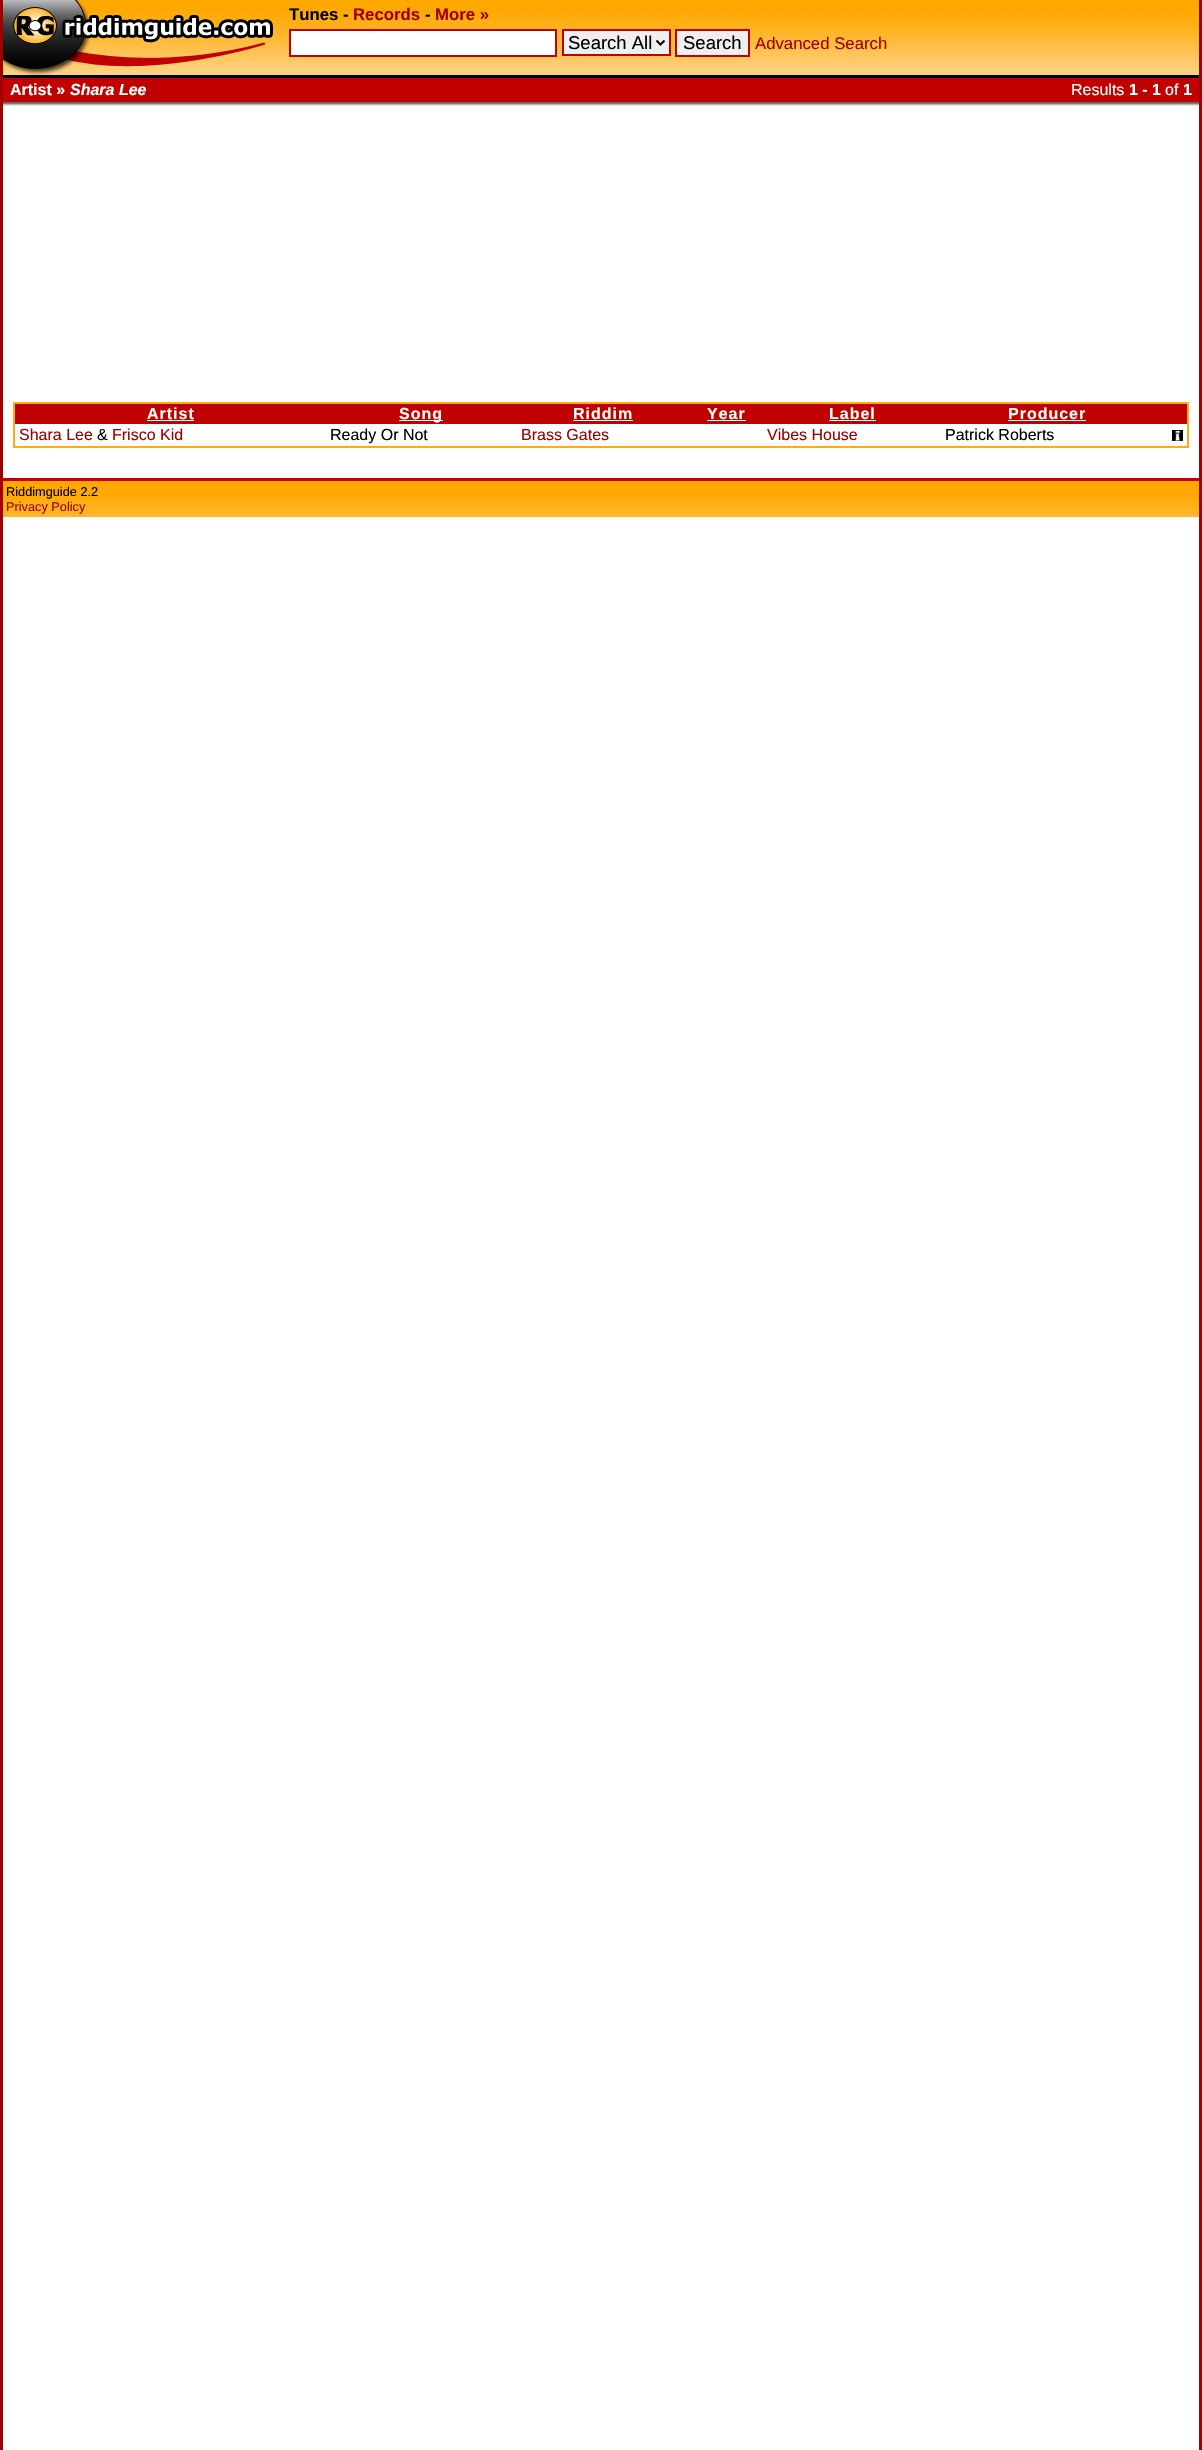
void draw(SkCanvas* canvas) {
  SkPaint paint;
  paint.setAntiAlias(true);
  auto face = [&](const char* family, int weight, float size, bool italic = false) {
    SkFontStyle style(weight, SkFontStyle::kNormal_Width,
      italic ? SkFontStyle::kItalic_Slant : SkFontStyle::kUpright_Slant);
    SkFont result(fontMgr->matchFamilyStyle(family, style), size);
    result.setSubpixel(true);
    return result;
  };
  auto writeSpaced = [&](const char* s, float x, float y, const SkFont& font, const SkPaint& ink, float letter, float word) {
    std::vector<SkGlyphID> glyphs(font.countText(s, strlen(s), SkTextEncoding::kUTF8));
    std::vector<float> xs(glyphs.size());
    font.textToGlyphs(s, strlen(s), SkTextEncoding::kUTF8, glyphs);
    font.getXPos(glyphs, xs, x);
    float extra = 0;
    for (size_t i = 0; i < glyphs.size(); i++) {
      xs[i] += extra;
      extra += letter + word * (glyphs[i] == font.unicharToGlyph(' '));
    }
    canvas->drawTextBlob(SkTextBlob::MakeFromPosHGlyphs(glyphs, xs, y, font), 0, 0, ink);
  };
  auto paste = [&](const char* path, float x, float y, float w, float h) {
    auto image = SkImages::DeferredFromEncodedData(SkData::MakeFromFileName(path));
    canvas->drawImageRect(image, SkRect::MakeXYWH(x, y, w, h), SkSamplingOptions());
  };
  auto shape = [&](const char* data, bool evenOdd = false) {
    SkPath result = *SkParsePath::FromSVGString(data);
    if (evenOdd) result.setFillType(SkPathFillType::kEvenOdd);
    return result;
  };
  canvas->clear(0xffffffff);
  paint.setColor(0xffa10000);
  canvas->drawRect(SkRect::MakeXYWH(1199, 0, 3, 2450), paint);
  canvas->drawRect(SkRect::MakeXYWH(0, 0, 3, 2450), paint);
  paste("img/1.png", 3, 0, 1196, 75);
  paste("img/2.png", 3, 0, 270, 75);
  paint.setColor(0xffffffff);
  canvas->drawRect(SkRect::MakeXYWH(290, 30, 266, 26), paint);
  paint.setStroke(true);
  paint.setStrokeWidth(2);
  paint.setColor(0xffc10000);
  canvas->drawRect(SkRect::MakeXYWH(290, 30, 266, 26), paint);
  paint.setStroke(false);
  paint.setColor(0xffefefef);
  canvas->drawRect(SkRect::MakeXYWH(563, 30, 107, 25), paint);
  paint.setStroke(true);
  paint.setColor(0xffc10000);
  canvas->drawRect(SkRect::MakeXYWH(563, 30, 107, 25), paint);
  paint.setColor(0xff000000);
  canvas->drawPath(shape("M656.5 40.5L660.5 44.5L664.5 40.5"), paint);
  paint.setStroke(false);
  paint.setColor(0xffefefef);
  canvas->drawRect(SkRect::MakeXYWH(676, 30, 73, 26), paint);
  paint.setStroke(true);
  paint.setColor(0xffc10000);
  canvas->drawRect(SkRect::MakeXYWH(676, 30, 73, 26), paint);
  paint.setStroke(false);
  canvas->drawRect(SkRect::MakeXYWH(3, 78, 1196, 24), paint);
  paint.setColor(0xff000000);
  canvas->drawRect(SkRect::MakeXYWH(3, 75, 1196, 3), paint);
  paste("img/3.png", 3, 102, 1196, 4);
  paint.setStroke(true);
  paint.setColor(0xffffac10);
  canvas->drawRect(SkRect::MakeXYWH(14, 403, 1174, 44), paint);
  paint.setStroke(false);
  {
    const struct { float x, y, w, h; SkColor color; } items[] = {
      {15, 404, 1172, 20, 0xffc10000},
      {147, 420, 47, 1, 0xffffffff},
      {399, 420, 44, 1, 0xffffffff},
      {573, 420, 60, 1, 0xffffffff},
      {707, 420, 39, 1, 0xffffffff},
      {829, 420, 47, 1, 0xffffffff},
      {1008, 420, 78, 1, 0xffffffff},
    };
    for (auto [x, y, w, h, color] : items) {
      paint.setColor(color);
      canvas->drawRect(SkRect::MakeXYWH(x, y, w, h), paint);
    }
  }
  paste("img/4.png", 1172, 430, 11, 11);
  paste("img/5.png", 3, 481, 1196, 36);
  paint.setColor(0xffc10000);
  canvas->drawRect(SkRect::MakeXYWH(3, 478, 1196, 3), paint);
  auto f0 = face("Liberation Sans", 700, 16.75f);
  paint.setColor(0xff000000);
  canvas->drawString("Tunes -", 289, 20, f0, paint);
  paint.setColor(0xffa10000);
  canvas->drawString("Records", 353, 20, f0, paint);
  paint.setColor(0xff000000);
  canvas->drawString("-", 425, 20, f0, paint);
  paint.setColor(0xffa10000);
  canvas->drawString("More »", 435, 20, f0, paint);
  auto f1 = face("Liberation Sans", 400, 18.5f);
  paint.setColor(0xff000000);
  canvas->drawString("Search All", 568, 49, f1, paint);
  canvas->drawString("Search", 683, 49, f1, paint);
  auto f2 = face("Liberation Sans", 400, 16.75f);
  paint.setColor(0xffa10000);
  canvas->drawString("Advanced Search", 755, 49, f2, paint);
  auto f3 = face("Liberation Sans", 700, 16);
  paint.setColor(0xffffffff);
  canvas->drawString("Artist »", 10, 95, f3, paint);
  auto f4 = face("Liberation Sans", 700, 16, true);
  canvas->drawString("Shara Lee", 70, 95, f4, paint);
  auto f5 = face("Liberation Sans", 400, 16);
  canvas->drawString("Results", 1071, 95, f5, paint);
  canvas->drawString("1 - 1", 1129, 95, f3, paint);
  canvas->drawString("of", 1165, 95, f5, paint);
  canvas->drawString("1", 1183, 95, f3, paint);
  {
    const struct { const char* s; float x, y; } items[] = {
      {"Artist", 147, 419},
      {"Song", 399, 419},
      {"Riddim", 573, 419},
      {"Year", 707, 419},
      {"Label", 829, 419},
      {"Producer", 1008, 419},
    };
    for (auto [s, x, y] : items) {
      writeSpaced(s, x, y, f3, paint, 1, 0);
    }
  }
  paint.setColor(0xffa10000);
  canvas->drawString("Shara Lee", 19, 440, f5, paint);
  paint.setColor(0xff000000);
  canvas->drawString("&", 97, 440, f5, paint);
  paint.setColor(0xffa10000);
  canvas->drawString("Frisco Kid", 112, 440, f5, paint);
  paint.setColor(0xff000000);
  canvas->drawString("Ready Or Not", 330, 440, f5, paint);
  paint.setColor(0xffa10000);
  canvas->drawString("Brass Gates", 521, 440, f5, paint);
  canvas->drawString("Vibes House", 767, 440, f5, paint);
  paint.setColor(0xff000000);
  canvas->drawString("Patrick Roberts", 945, 440, f5, paint);
  auto f6 = face("Liberation Sans", 400, 12.75f);
  canvas->drawString("Riddimguide 2.2", 6, 496, f6, paint);
  paint.setColor(0xffa10000);
  canvas->drawString("Privacy Policy", 6, 511, f6, paint);
}
